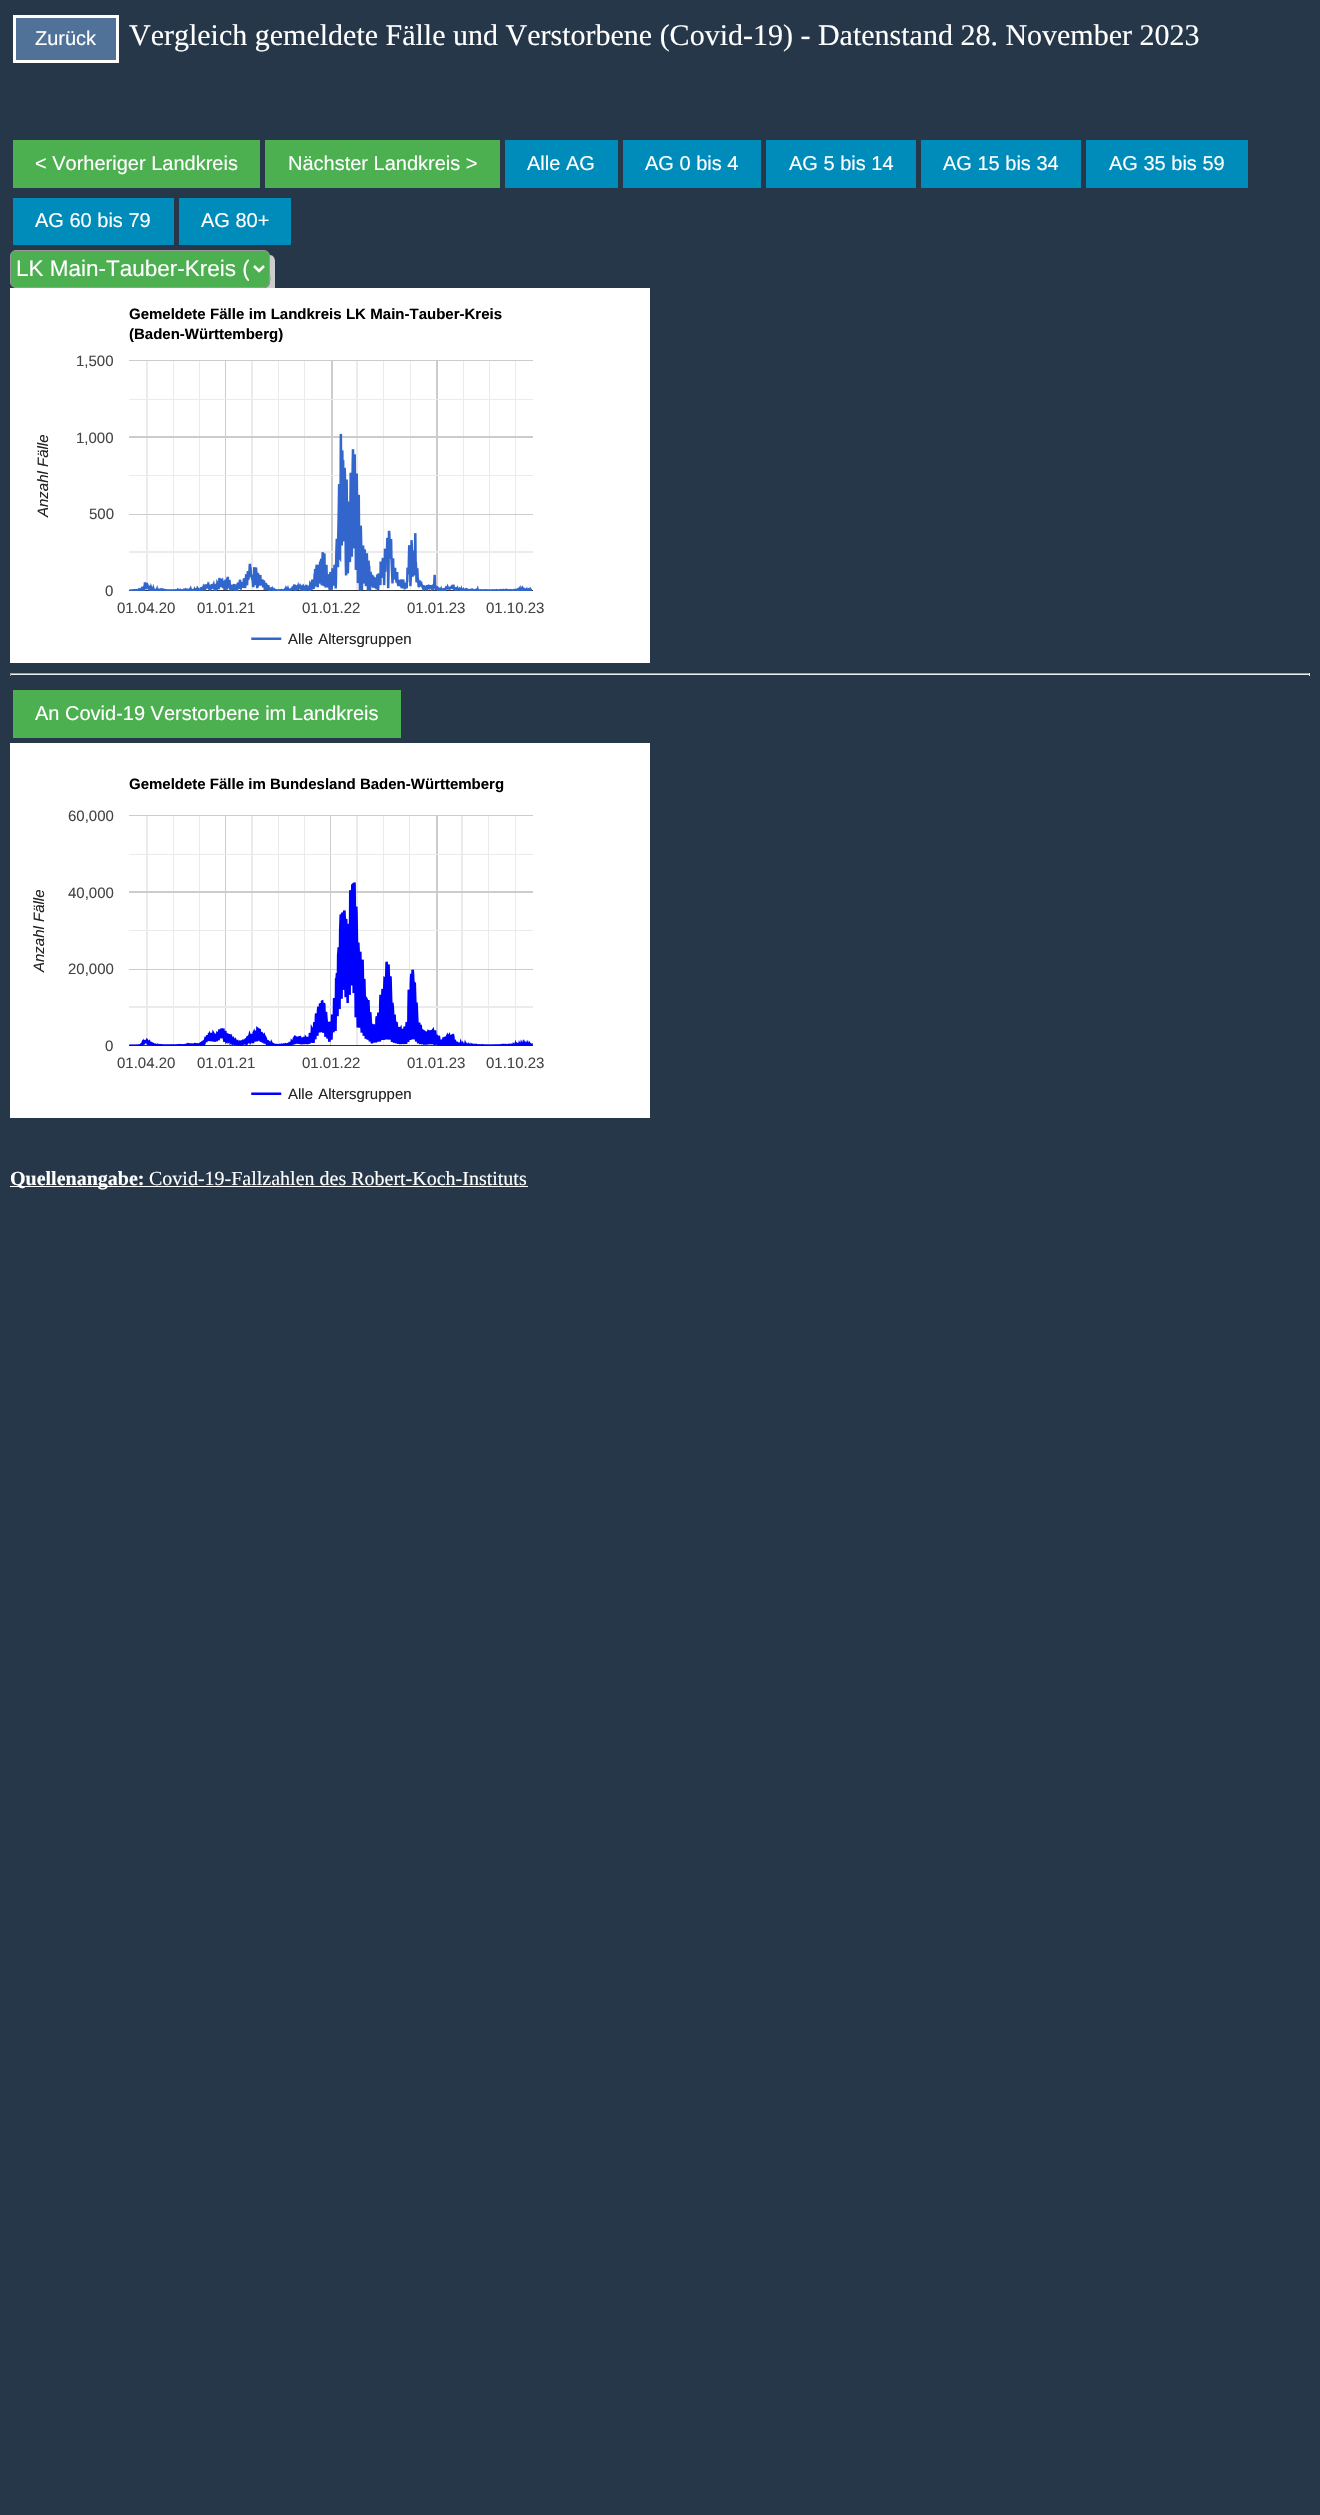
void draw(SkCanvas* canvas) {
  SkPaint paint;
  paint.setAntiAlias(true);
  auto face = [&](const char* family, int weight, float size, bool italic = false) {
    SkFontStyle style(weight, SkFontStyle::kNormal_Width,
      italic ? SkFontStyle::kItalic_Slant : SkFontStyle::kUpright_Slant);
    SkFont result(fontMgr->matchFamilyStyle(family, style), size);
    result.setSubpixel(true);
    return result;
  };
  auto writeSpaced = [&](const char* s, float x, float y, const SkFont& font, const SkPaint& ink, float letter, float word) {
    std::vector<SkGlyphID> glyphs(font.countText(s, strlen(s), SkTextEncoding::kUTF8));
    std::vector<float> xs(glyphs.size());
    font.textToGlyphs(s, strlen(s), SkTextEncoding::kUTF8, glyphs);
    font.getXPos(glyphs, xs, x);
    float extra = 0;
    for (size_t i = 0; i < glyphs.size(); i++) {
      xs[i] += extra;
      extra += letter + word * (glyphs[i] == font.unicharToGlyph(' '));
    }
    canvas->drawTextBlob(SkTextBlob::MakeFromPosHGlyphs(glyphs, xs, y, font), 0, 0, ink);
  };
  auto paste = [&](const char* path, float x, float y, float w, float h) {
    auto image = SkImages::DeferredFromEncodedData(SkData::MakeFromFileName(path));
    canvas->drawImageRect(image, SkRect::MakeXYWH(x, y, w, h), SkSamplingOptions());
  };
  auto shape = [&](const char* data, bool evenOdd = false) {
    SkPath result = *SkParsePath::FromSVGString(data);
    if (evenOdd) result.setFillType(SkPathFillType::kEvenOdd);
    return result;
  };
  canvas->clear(0xff26374a);
  paint.setColor(0xff507298);
  canvas->drawRect(SkRect::MakeXYWH(14.5f, 16.5f, 103, 45), paint);
  paint.setStroke(true);
  paint.setStrokeWidth(3);
  paint.setColor(0xffffffff);
  canvas->drawRect(SkRect::MakeXYWH(14.5f, 16.5f, 103, 45), paint);
  paint.setStroke(false);
  {
    const struct { float x, y, w, h; SkColor color; } items[] = {
      {13, 140, 247, 48, 0xff4caf50},
      {265, 140, 235, 48, 0xff4caf50},
      {505, 140, 113, 48, 0xff008cba},
      {623, 140, 138, 48, 0xff008cba},
      {766, 140, 150, 48, 0xff008cba},
      {921, 140, 160, 48, 0xff008cba},
      {1086, 140, 162, 48, 0xff008cba},
      {13, 198, 161, 47, 0xff008cba},
      {179, 198, 112, 47, 0xff008cba},
    };
    for (auto [x, y, w, h, color] : items) {
      paint.setColor(color);
      canvas->drawRect(SkRect::MakeXYWH(x, y, w, h), paint);
    }
  }
  paint.setColor(0xffcccccc);
  canvas->drawPath(shape("M15 287C15 291 18 293 21 293H269C272 293 275 290 275 287V261C275 258 273 255 270 255V273C270 278 272 287 264 288Z"), paint);
  paint.setColor(0xff4caf50);
  canvas->drawRoundRect(SkRect::MakeXYWH(10.5f, 250.5f, 259, 37), 5.5f, 5.5f, paint);
  paint.setStroke(true);
  paint.setStrokeWidth(1);
  paint.setColor(0xff999999);
  canvas->drawRoundRect(SkRect::MakeXYWH(10.5f, 250.5f, 259, 37), 5.5f, 5.5f, paint);
  paint.setStrokeWidth(2.5f);
  paint.setColor(0xffffffff);
  canvas->drawPath(shape("M254 266L259 271L264 266"), paint);
  paste("img/1.png", 10, 288, 640, 375);
  paint.setStroke(false);
  {
    const struct { float x, y, w, h; SkColor color; } items[] = {
      {10, 673, 1300, 1, 0xff9f9f9f},
      {1309, 673, 1, 3, 0xffeeeeee},
      {10, 674, 1300, 1, 0xffeeeeee},
      {10, 673, 1, 3, 0xff9f9f9f},
      {13, 690, 388, 48, 0xff4caf50},
    };
    for (auto [x, y, w, h, color] : items) {
      paint.setColor(color);
      canvas->drawRect(SkRect::MakeXYWH(x, y, w, h), paint);
    }
  }
  paste("img/2.png", 10, 743, 640, 375);
  paint.setColor(0xffffffff);
  canvas->drawRect(SkRect::MakeXYWH(10, 1186, 518, 1), paint);
  auto f0 = face("Liberation Sans", 400, 20);
  canvas->drawString("Zurück", 35, 45, f0, paint);
  auto f1 = face("Liberation Serif", 400, 30);
  canvas->drawString("Vergleich gemeldete Fälle und Verstorbene (Covid-19) - Datenstand 28. November 2023", 129, 45, f1, paint);
  {
    const struct { const char* s; float x, y; } items[] = {
      {"< Vorheriger Landkreis", 35, 170},
      {"Nächster Landkreis >", 288, 170},
      {"Alle AG", 527, 170},
      {"AG 0 bis 4", 645, 170},
      {"AG 5 bis 14", 789, 170},
      {"AG 15 bis 34", 943, 170},
      {"AG 35 bis 59", 1109, 170},
      {"AG 60 bis 79", 35, 227},
      {"AG 80+", 201, 227},
    };
    for (auto [s, x, y] : items) {
      canvas->drawString(s, x, y, f0, paint);
    }
  }
  canvas->save();
  canvas->clipRect(SkRect::MakeXYWH(16, 255, 233, 28));
  auto f2 = face("Liberation Sans", 400, 22.5f);
  canvas->drawString("LK Main-Tauber-Kreis (", 16, 276, f2, paint);
  canvas->restore();
  auto f3 = face("Liberation Sans", 700, 15);
  paint.setColor(0xff000000);
  writeSpaced("Gemeldete Fälle im Landkreis LK Main-Tauber-Kreis", 129, 319, f3, paint, 0, 0.25f);
  canvas->drawString("(Baden-Württemberg)", 129, 339, f3, paint);
  auto f4 = face("Liberation Sans", 400, 15);
  paint.setColor(0xff444444);
  canvas->drawString("1,500", 76, 366, f4, paint);
  auto f5 = face("Liberation Sans", 400, 15, true);
  paint.setColor(0xff222222);
  canvas->save();
  canvas->rotate(-90, 48, 517);
  canvas->drawString("Anzahl Fälle", 48, 517, f5, paint);
  canvas->restore();
  paint.setColor(0xff444444);
  {
    const struct { const char* s; float x, y; } items[] = {
      {"1,000", 76, 443},
      {"500", 89, 519},
      {"0", 105, 596},
      {"01.04.20", 117, 613},
      {"01.01.21", 197, 613},
      {"01.01.22", 302, 613},
      {"01.01.23", 407, 613},
      {"01.10.23", 486, 613},
    };
    for (auto [s, x, y] : items) {
      canvas->drawString(s, x, y, f4, paint);
    }
  }
  paint.setColor(0xff222222);
  writeSpaced("Alle Altersgruppen", 288, 644, f4, paint, 0, 1);
  paint.setColor(0xffffffff);
  canvas->drawString("An Covid-19 Verstorbene im Landkreis", 35, 720, f0, paint);
  paint.setColor(0xff000000);
  canvas->drawString("Gemeldete Fälle im Bundesland Baden-Württemberg", 129, 789, f3, paint);
  paint.setColor(0xff444444);
  canvas->drawString("60,000", 68, 821, f4, paint);
  paint.setColor(0xff222222);
  canvas->save();
  canvas->rotate(-90, 44, 972);
  canvas->drawString("Anzahl Fälle", 44, 972, f5, paint);
  canvas->restore();
  paint.setColor(0xff444444);
  {
    const struct { const char* s; float x, y; } items[] = {
      {"40,000", 68, 898},
      {"20,000", 68, 974},
      {"0", 105, 1051},
      {"01.04.20", 117, 1068},
      {"01.01.21", 197, 1068},
      {"01.01.22", 302, 1068},
      {"01.01.23", 407, 1068},
      {"01.10.23", 486, 1068},
    };
    for (auto [s, x, y] : items) {
      canvas->drawString(s, x, y, f4, paint);
    }
  }
  paint.setColor(0xff222222);
  writeSpaced("Alle Altersgruppen", 288, 1099, f4, paint, 0, 1);
  auto f6 = face("Liberation Serif", 700, 20);
  paint.setColor(0xffffffff);
  canvas->drawString("Quellenangabe:", 10, 1185, f6, paint);
  auto f7 = face("Liberation Serif", 400, 20);
  canvas->drawString("Covid-19-Fallzahlen des Robert-Koch-Instituts", 149, 1185, f7, paint);
}
